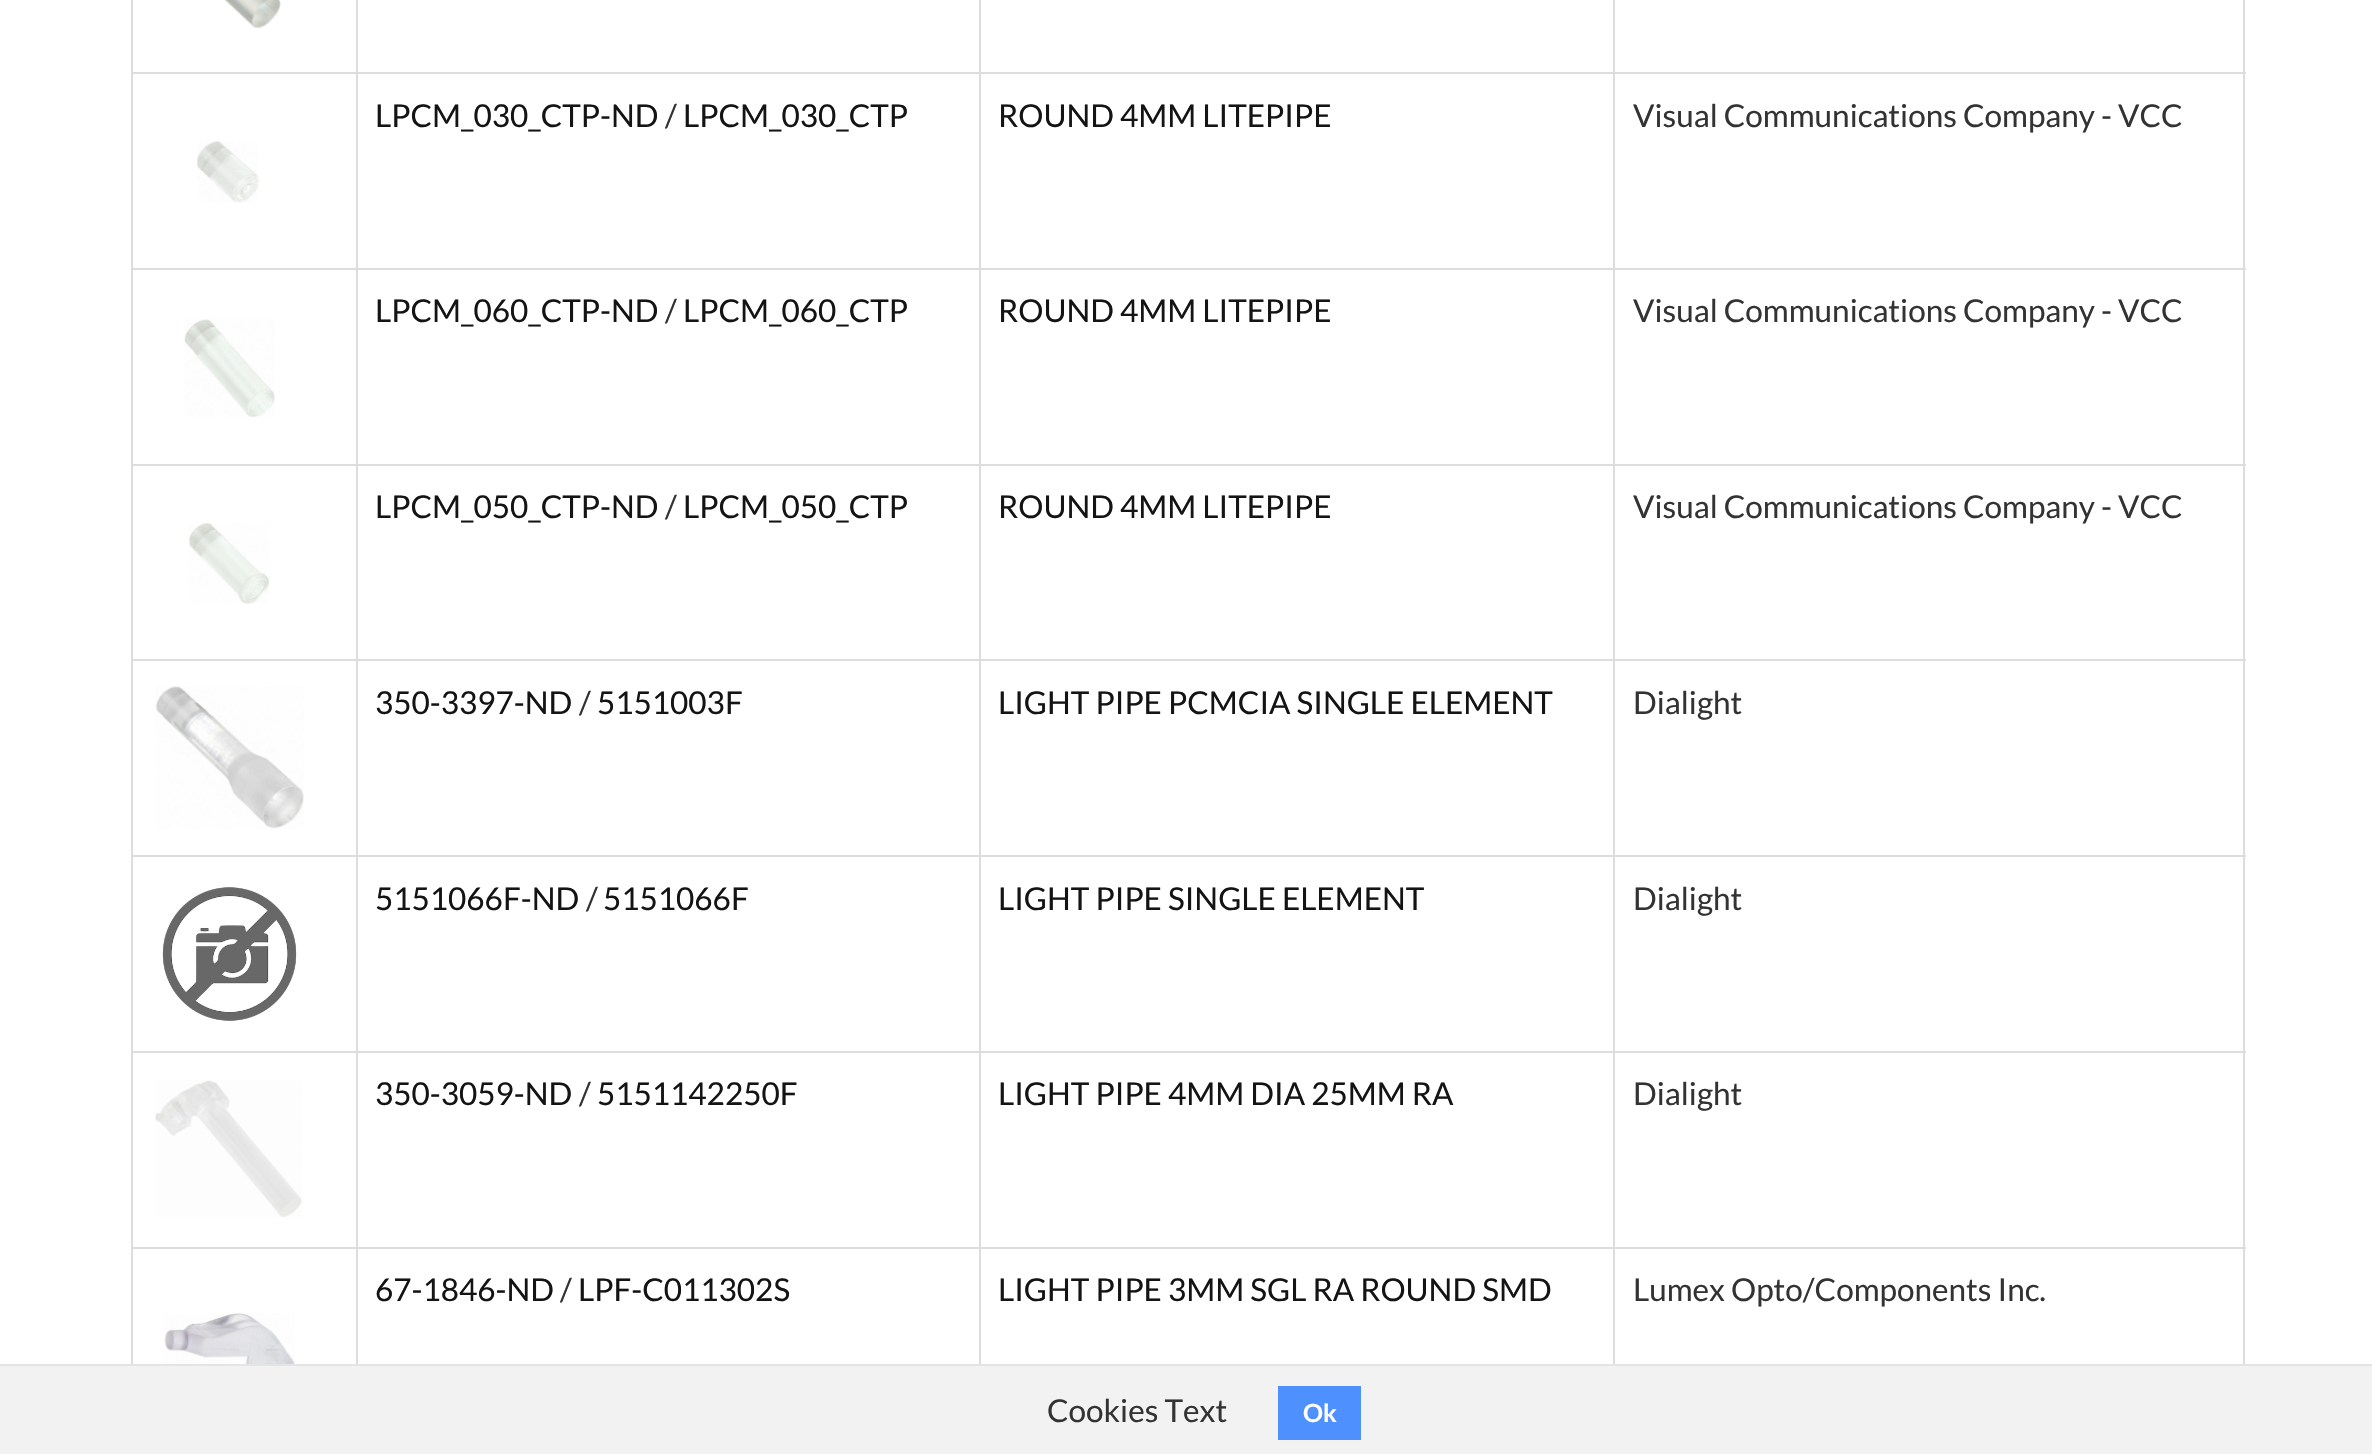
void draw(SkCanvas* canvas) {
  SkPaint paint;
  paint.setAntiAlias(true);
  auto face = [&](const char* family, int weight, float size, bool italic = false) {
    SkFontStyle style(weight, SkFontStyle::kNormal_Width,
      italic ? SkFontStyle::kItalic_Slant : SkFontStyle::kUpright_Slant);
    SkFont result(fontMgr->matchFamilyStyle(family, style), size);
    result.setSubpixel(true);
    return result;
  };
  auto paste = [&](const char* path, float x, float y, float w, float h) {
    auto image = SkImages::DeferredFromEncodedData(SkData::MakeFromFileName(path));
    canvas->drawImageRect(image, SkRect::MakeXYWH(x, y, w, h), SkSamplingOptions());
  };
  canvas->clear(0xffffffff);
  paint.setColor(0xffdddddd);
  canvas->drawRect(SkRect::MakeXYWH(2243, 0, 2, 1364), paint);
  canvas->drawRect(SkRect::MakeXYWH(131, 0, 2, 1364), paint);
  paste("img/1.png", 224, 0, 57, 29);
  {
    const struct { float x, y, w, h; SkColor color; } items[] = {
      {1613, 72, 633, 2, 0xffdddddd},
      {1613, 268, 633, 2, 0xffdddddd},
      {1613, 464, 633, 2, 0xffdddddd},
      {1613, 659, 633, 2, 0xffdddddd},
      {1613, 855, 633, 2, 0xffdddddd},
      {1613, 1051, 633, 2, 0xffdddddd},
      {1613, 1247, 633, 2, 0xffdddddd},
      {1613, 1247, 2, 117, 0xffdddddd},
      {979, 1247, 637, 2, 0xffdddddd},
      {1613, 1051, 2, 198, 0xffdddddd},
      {979, 1051, 637, 2, 0xffdddddd},
      {1613, 855, 2, 198, 0xffdddddd},
      {979, 855, 637, 2, 0xffdddddd},
      {1613, 659, 2, 198, 0xffdddddd},
      {979, 659, 637, 2, 0xffdddddd},
      {1613, 464, 2, 198, 0xffdddddd},
      {979, 464, 637, 2, 0xffdddddd},
      {1613, 268, 2, 198, 0xffdddddd},
      {979, 268, 637, 2, 0xffdddddd},
      {1613, 72, 2, 198, 0xffdddddd},
      {979, 72, 637, 2, 0xffdddddd},
      {979, 1247, 2, 117, 0xffdddddd},
      {356, 1247, 625, 2, 0xffdddddd},
      {979, 1051, 2, 198, 0xffdddddd},
      {356, 1051, 625, 2, 0xffdddddd},
      {979, 855, 2, 198, 0xffdddddd},
      {356, 855, 625, 2, 0xffdddddd},
      {979, 659, 2, 198, 0xffdddddd},
      {356, 659, 625, 2, 0xffdddddd},
      {979, 464, 2, 198, 0xffdddddd},
      {356, 464, 625, 2, 0xffdddddd},
      {979, 268, 2, 198, 0xffdddddd},
      {356, 268, 625, 2, 0xffdddddd},
      {979, 72, 2, 198, 0xffdddddd},
      {356, 72, 625, 2, 0xffdddddd},
      {356, 1247, 2, 117, 0xffdddddd},
      {131, 1247, 227, 2, 0xffdddddd},
      {356, 1051, 2, 198, 0xffdddddd},
      {131, 1051, 227, 2, 0xffdddddd},
      {356, 855, 2, 198, 0xffdddddd},
      {131, 855, 227, 2, 0xffdddddd},
      {356, 659, 2, 198, 0xffdddddd},
      {131, 659, 227, 2, 0xffdddddd},
      {356, 464, 2, 198, 0xffdddddd},
      {131, 464, 227, 2, 0xffdddddd},
      {356, 268, 2, 198, 0xffdddddd},
      {131, 268, 227, 2, 0xffdddddd},
      {356, 72, 2, 198, 0xffdddddd},
      {131, 72, 227, 2, 0xffdddddd},
      {356, 0, 2, 74, 0xffdddddd},
      {979, 0, 2, 74, 0xffdddddd},
      {1613, 0, 2, 74, 0xffdddddd},
    };
    for (auto [x, y, w, h, color] : items) {
      paint.setColor(color);
      canvas->drawRect(SkRect::MakeXYWH(x, y, w, h), paint);
    }
  }
  paste("img/2.png", 197, 141, 62, 62);
  paste("img/3.png", 184, 319, 91, 98);
  paste("img/4.png", 188, 523, 81, 81);
  paste("img/5.png", 155, 686, 149, 143);
  paste("img/6.png", 162, 887, 135, 134);
  paste("img/7.png", 155, 1080, 147, 137);
  paste("img/8.png", 164, 1313, 131, 51);
  {
    const struct { float x, y, w, h; SkColor color; } items[] = {
      {0, 1366, 2372, 88, 0xfff2f2f2},
      {0, 1364, 2372, 2, 0xffe4e4e4},
      {1278, 1386, 83, 54, 0xff4d90fe},
    };
    for (auto [x, y, w, h, color] : items) {
      paint.setColor(color);
      canvas->drawRect(SkRect::MakeXYWH(x, y, w, h), paint);
    }
  }
  auto f0 = face("Lato", 400, 31.5f);
  paint.setColor(0xff141414);
  canvas->drawString("LPCM_030_CTP-ND", 375, 127, f0, paint);
  paint.setColor(0xff333333);
  canvas->drawString("/", 665, 127, f0, paint);
  paint.setColor(0xff141414);
  canvas->drawString("LPCM_030_CTP", 683, 127, f0, paint);
  canvas->drawString("ROUND 4MM LITEPIPE", 998, 127, f0, paint);
  paint.setColor(0xff333333);
  canvas->drawString("Visual Communications Company - VCC", 1633, 127, f0, paint);
  paint.setColor(0xff141414);
  canvas->drawString("LPCM_060_CTP-ND", 375, 322, f0, paint);
  paint.setColor(0xff333333);
  canvas->drawString("/", 665, 322, f0, paint);
  paint.setColor(0xff141414);
  canvas->drawString("LPCM_060_CTP", 683, 322, f0, paint);
  canvas->drawString("ROUND 4MM LITEPIPE", 998, 322, f0, paint);
  paint.setColor(0xff333333);
  canvas->drawString("Visual Communications Company - VCC", 1633, 322, f0, paint);
  paint.setColor(0xff141414);
  canvas->drawString("LPCM_050_CTP-ND", 375, 518, f0, paint);
  paint.setColor(0xff333333);
  canvas->drawString("/", 665, 518, f0, paint);
  paint.setColor(0xff141414);
  canvas->drawString("LPCM_050_CTP", 683, 518, f0, paint);
  canvas->drawString("ROUND 4MM LITEPIPE", 998, 518, f0, paint);
  paint.setColor(0xff333333);
  canvas->drawString("Visual Communications Company - VCC", 1633, 518, f0, paint);
  paint.setColor(0xff141414);
  canvas->drawString("350-3397-ND", 375, 714, f0, paint);
  paint.setColor(0xff333333);
  canvas->drawString("/", 579, 714, f0, paint);
  paint.setColor(0xff141414);
  canvas->drawString("5151003F", 597, 714, f0, paint);
  canvas->drawString("LIGHT PIPE PCMCIA SINGLE ELEMENT", 998, 714, f0, paint);
  paint.setColor(0xff333333);
  canvas->drawString("Dialight", 1633, 714, f0, paint);
  paint.setColor(0xff141414);
  canvas->drawString("5151066F-ND", 375, 910, f0, paint);
  paint.setColor(0xff333333);
  canvas->drawString("/", 586, 910, f0, paint);
  paint.setColor(0xff141414);
  canvas->drawString("5151066F", 603, 910, f0, paint);
  canvas->drawString("LIGHT PIPE SINGLE ELEMENT", 998, 910, f0, paint);
  paint.setColor(0xff333333);
  canvas->drawString("Dialight", 1633, 910, f0, paint);
  paint.setColor(0xff141414);
  canvas->drawString("350-3059-ND", 375, 1105, f0, paint);
  paint.setColor(0xff333333);
  canvas->drawString("/", 579, 1105, f0, paint);
  paint.setColor(0xff141414);
  canvas->drawString("5151142250F", 597, 1105, f0, paint);
  canvas->drawString("LIGHT PIPE 4MM DIA 25MM RA", 998, 1105, f0, paint);
  paint.setColor(0xff333333);
  canvas->drawString("Dialight", 1633, 1105, f0, paint);
  paint.setColor(0xff141414);
  canvas->drawString("67-1846-ND", 375, 1301, f0, paint);
  paint.setColor(0xff333333);
  canvas->drawString("/", 560, 1301, f0, paint);
  paint.setColor(0xff141414);
  canvas->drawString("LPF-C011302S", 578, 1301, f0, paint);
  canvas->drawString("LIGHT PIPE 3MM SGL RA ROUND SMD", 998, 1301, f0, paint);
  paint.setColor(0xff333333);
  canvas->drawString("Lumex Opto/Components Inc.", 1633, 1301, f0, paint);
  canvas->drawString("Cookies Text", 1047, 1422, f0, paint);
  auto f1 = face("Lato", 700, 25);
  paint.setColor(0xffffffff);
  canvas->drawString("Ok", 1303, 1422, f1, paint);
}
